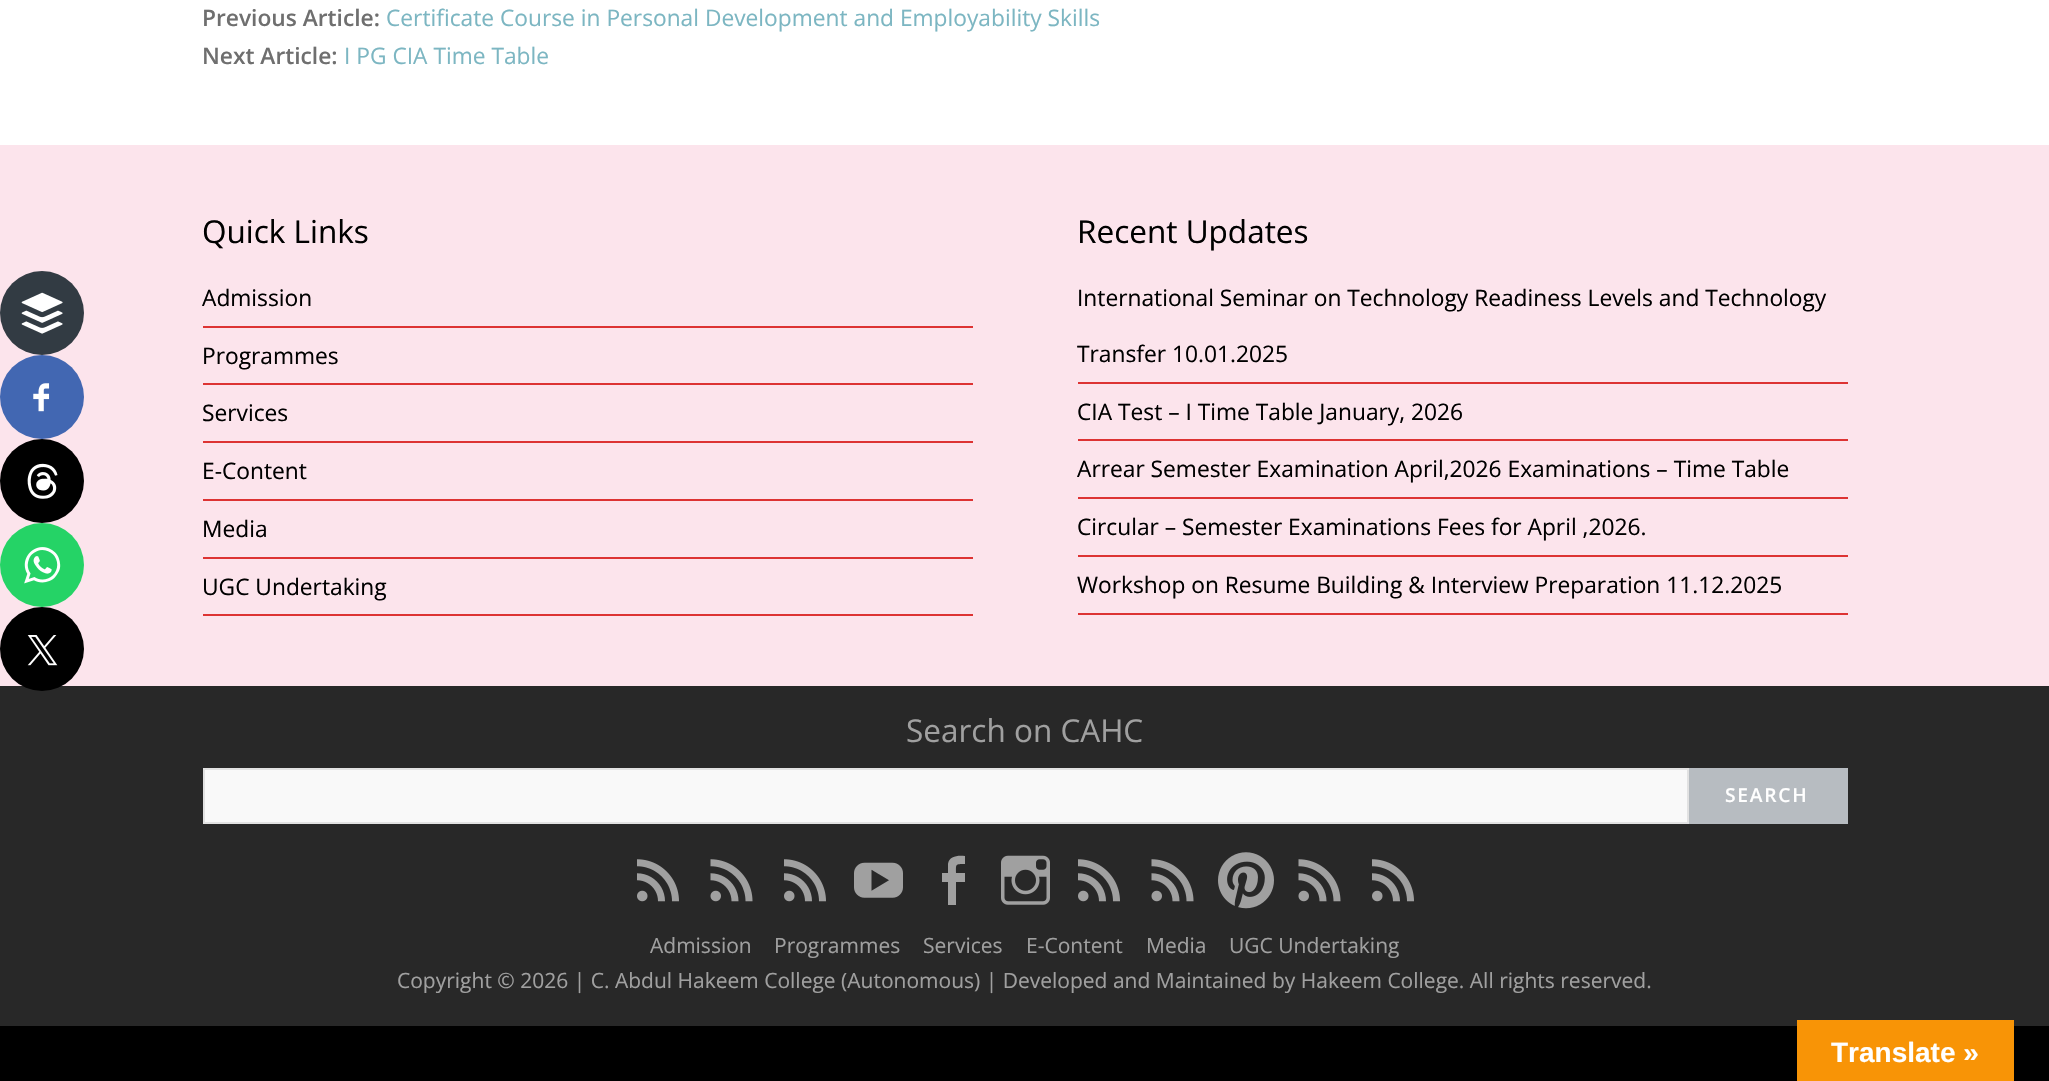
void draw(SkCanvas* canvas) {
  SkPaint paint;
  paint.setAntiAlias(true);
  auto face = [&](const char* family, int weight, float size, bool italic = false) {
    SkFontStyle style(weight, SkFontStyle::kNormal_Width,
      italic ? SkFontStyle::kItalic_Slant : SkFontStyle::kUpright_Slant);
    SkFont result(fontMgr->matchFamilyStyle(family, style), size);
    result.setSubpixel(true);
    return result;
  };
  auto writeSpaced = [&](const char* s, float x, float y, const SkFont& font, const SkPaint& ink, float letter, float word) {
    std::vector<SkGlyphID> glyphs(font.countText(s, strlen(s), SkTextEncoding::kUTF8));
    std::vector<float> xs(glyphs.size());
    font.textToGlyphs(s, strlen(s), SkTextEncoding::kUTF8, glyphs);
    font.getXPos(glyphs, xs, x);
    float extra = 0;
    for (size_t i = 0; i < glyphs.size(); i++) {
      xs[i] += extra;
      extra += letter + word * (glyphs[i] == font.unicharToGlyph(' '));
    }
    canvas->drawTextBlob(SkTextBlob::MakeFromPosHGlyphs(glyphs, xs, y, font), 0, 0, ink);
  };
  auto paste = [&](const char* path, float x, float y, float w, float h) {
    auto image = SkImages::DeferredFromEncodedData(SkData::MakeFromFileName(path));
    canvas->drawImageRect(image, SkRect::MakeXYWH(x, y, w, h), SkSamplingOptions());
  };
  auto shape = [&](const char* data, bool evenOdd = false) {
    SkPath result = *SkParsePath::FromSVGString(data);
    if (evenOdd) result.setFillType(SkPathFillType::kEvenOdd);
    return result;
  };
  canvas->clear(0xff000000);
  paint.setColor(0xfffce4ec);
  canvas->drawRect(SkRect::MakeXYWH(0, 145, 2049, 541), paint);
  paint.setColor(0xff323b43);
  canvas->drawCircle(42, 313, 42, paint);
  paste("img/1.png", 21, 292, 42, 42);
  paint.setColor(0xff4267b2);
  canvas->drawCircle(42, 397, 42, paint);
  paste("img/2.png", 33, 383, 17, 29);
  paint.setColor(0xff000000);
  canvas->drawCircle(42, 481, 42, paint);
  paste("img/3.png", 27, 463, 31, 36);
  paint.setColor(0xff25d366);
  canvas->drawCircle(42, 565, 42, paint);
  paste("img/4.png", 24, 547, 37, 37);
  paint.setColor(0xff282828);
  canvas->drawRect(SkRect::MakeXYWH(0, 686, 2049, 340), paint);
  paint.setColor(0xff000000);
  canvas->drawCircle(42, 649, 42, paint);
  paste("img/5.png", 27, 635, 31, 31);
  {
    const struct { float x, y, w, h; SkColor color; } items[] = {
      {0, 0, 2049, 145, 0xffffffff},
      {203, 326, 770, 2, 0xffdd3333},
      {203, 383, 770, 2, 0xffdd3333},
      {203, 441, 770, 2, 0xffdd3333},
      {203, 499, 770, 2, 0xffdd3333},
      {203, 557, 770, 2, 0xffdd3333},
      {203, 614, 770, 2, 0xffdd3333},
      {1078, 382, 770, 2, 0xffdd3333},
      {1078, 439, 770, 2, 0xffdd3333},
      {1078, 497, 770, 2, 0xffdd3333},
      {1078, 555, 770, 2, 0xffdd3333},
      {1078, 613, 770, 2, 0xffdd3333},
    };
    for (auto [x, y, w, h, color] : items) {
      paint.setColor(color);
      canvas->drawRect(SkRect::MakeXYWH(x, y, w, h), paint);
    }
  }
  paint.setColor(0xfff9f9f9);
  canvas->drawRect(SkRect::MakeXYWH(204, 769, 1484, 54), paint);
  paint.setStroke(true);
  paint.setStrokeWidth(2);
  paint.setColor(0xffe2e2e2);
  canvas->drawRect(SkRect::MakeXYWH(204, 769, 1484, 54), paint);
  paint.setStroke(false);
  paint.setColor(0xffb7bcc1);
  canvas->drawRect(SkRect::MakeXYWH(1689, 768, 159, 56), paint);
  paste("img/6.png", 637, 859, 42, 43);
  paste("img/7.png", 710, 859, 43, 43);
  paste("img/6.png", 784, 859, 42, 43);
  paste("img/8.png", 854, 862, 49, 36);
  paint.setColor(0xffa0a0a0);
  canvas->drawPath(shape("M956 873H965V882H956V905H948V882H942V873H948V864C949 856 958 855 965 856V864C955 864 956 864 956 873Z"), paint);
  paste("img/9.png", 1001, 855, 49, 50);
  paste("img/6.png", 1078, 859, 42, 43);
  paste("img/7.png", 1151, 859, 43, 43);
  paste("img/10.png", 1218, 852, 56, 57);
  paste("img/7.png", 1298, 859, 43, 43);
  paste("img/6.png", 1372, 859, 42, 43);
  paint.setColor(0xfff89406);
  canvas->drawRect(SkRect::MakeXYWH(1797, 1020, 217, 61), paint);
  auto f0 = face("Open Sans", 600, 22.75f);
  paint.setColor(0xff6f6f6f);
  canvas->drawString("Previous Article:", 202, 26, f0, paint);
  auto f1 = face("Open Sans", 400, 22.75f);
  paint.setColor(0xff7cb6c2);
  canvas->drawString("Certificate Course in Personal Development and Employability Skills", 386, 26, f1, paint);
  paint.setColor(0xff6f6f6f);
  canvas->drawString("Next Article:", 202, 64, f0, paint);
  paint.setColor(0xff7cb6c2);
  canvas->drawString("I PG CIA Time Table", 344, 64, f1, paint);
  auto f2 = face("Open Sans", 400, 31.5f);
  paint.setColor(0xff000000);
  canvas->drawString("Quick Links", 202, 243, f2, paint);
  {
    const struct { const char* s; float x, y; } items[] = {
      {"Admission", 202, 306},
      {"Programmes", 202, 364},
      {"Services", 202, 421},
      {"E-Content", 202, 479},
      {"Media", 202, 537},
      {"UGC Undertaking", 202, 595},
    };
    for (auto [s, x, y] : items) {
      canvas->drawString(s, x, y, f1, paint);
    }
  }
  canvas->drawString("Recent Updates", 1077, 243, f2, paint);
  {
    const struct { const char* s; float x, y; } items[] = {
      {"International Seminar on Technology Readiness Levels and Technology", 1077, 306},
      {"Transfer 10.01.2025", 1077, 362},
      {"CIA Test – I Time Table January, 2026", 1077, 420},
      {"Arrear Semester Examination April,2026 Examinations – Time Table", 1077, 477},
      {"Circular – Semester Examinations Fees for April ,2026.", 1077, 535},
      {"Workshop on Resume Building & Interview Preparation 11.12.2025", 1077, 593},
    };
    for (auto [s, x, y] : items) {
      canvas->drawString(s, x, y, f1, paint);
    }
  }
  paint.setColor(0xffa0a0a0);
  canvas->drawString("Search on CAHC", 906, 742, f2, paint);
  auto f3 = face("Open Sans", 600, 19.25f);
  paint.setColor(0xffffffff);
  writeSpaced("SEARCH", 1725, 802, f3, paint, 1.75f, 0);
  auto f4 = face("Open Sans", 400, 21);
  paint.setColor(0xffa0a0a0);
  {
    const struct { const char* s; float x, y; } items[] = {
      {"Admission", 650, 953},
      {"Programmes", 774, 953},
      {"Services", 923, 953},
      {"E-Content", 1026, 953},
      {"Media", 1146, 953},
      {"UGC Undertaking", 1229, 953},
      {"Copyright © 2026 | C. Abdul Hakeem College (Autonomous) | Developed and Maintained by Hakeem College. All rights reserved.", 397, 988},
    };
    for (auto [s, x, y] : items) {
      canvas->drawString(s, x, y, f4, paint);
    }
  }
  auto f5 = face("Liberation Sans", 700, 28);
  paint.setColor(0xffffffff);
  canvas->drawString("Translate »", 1831, 1062, f5, paint);
}
